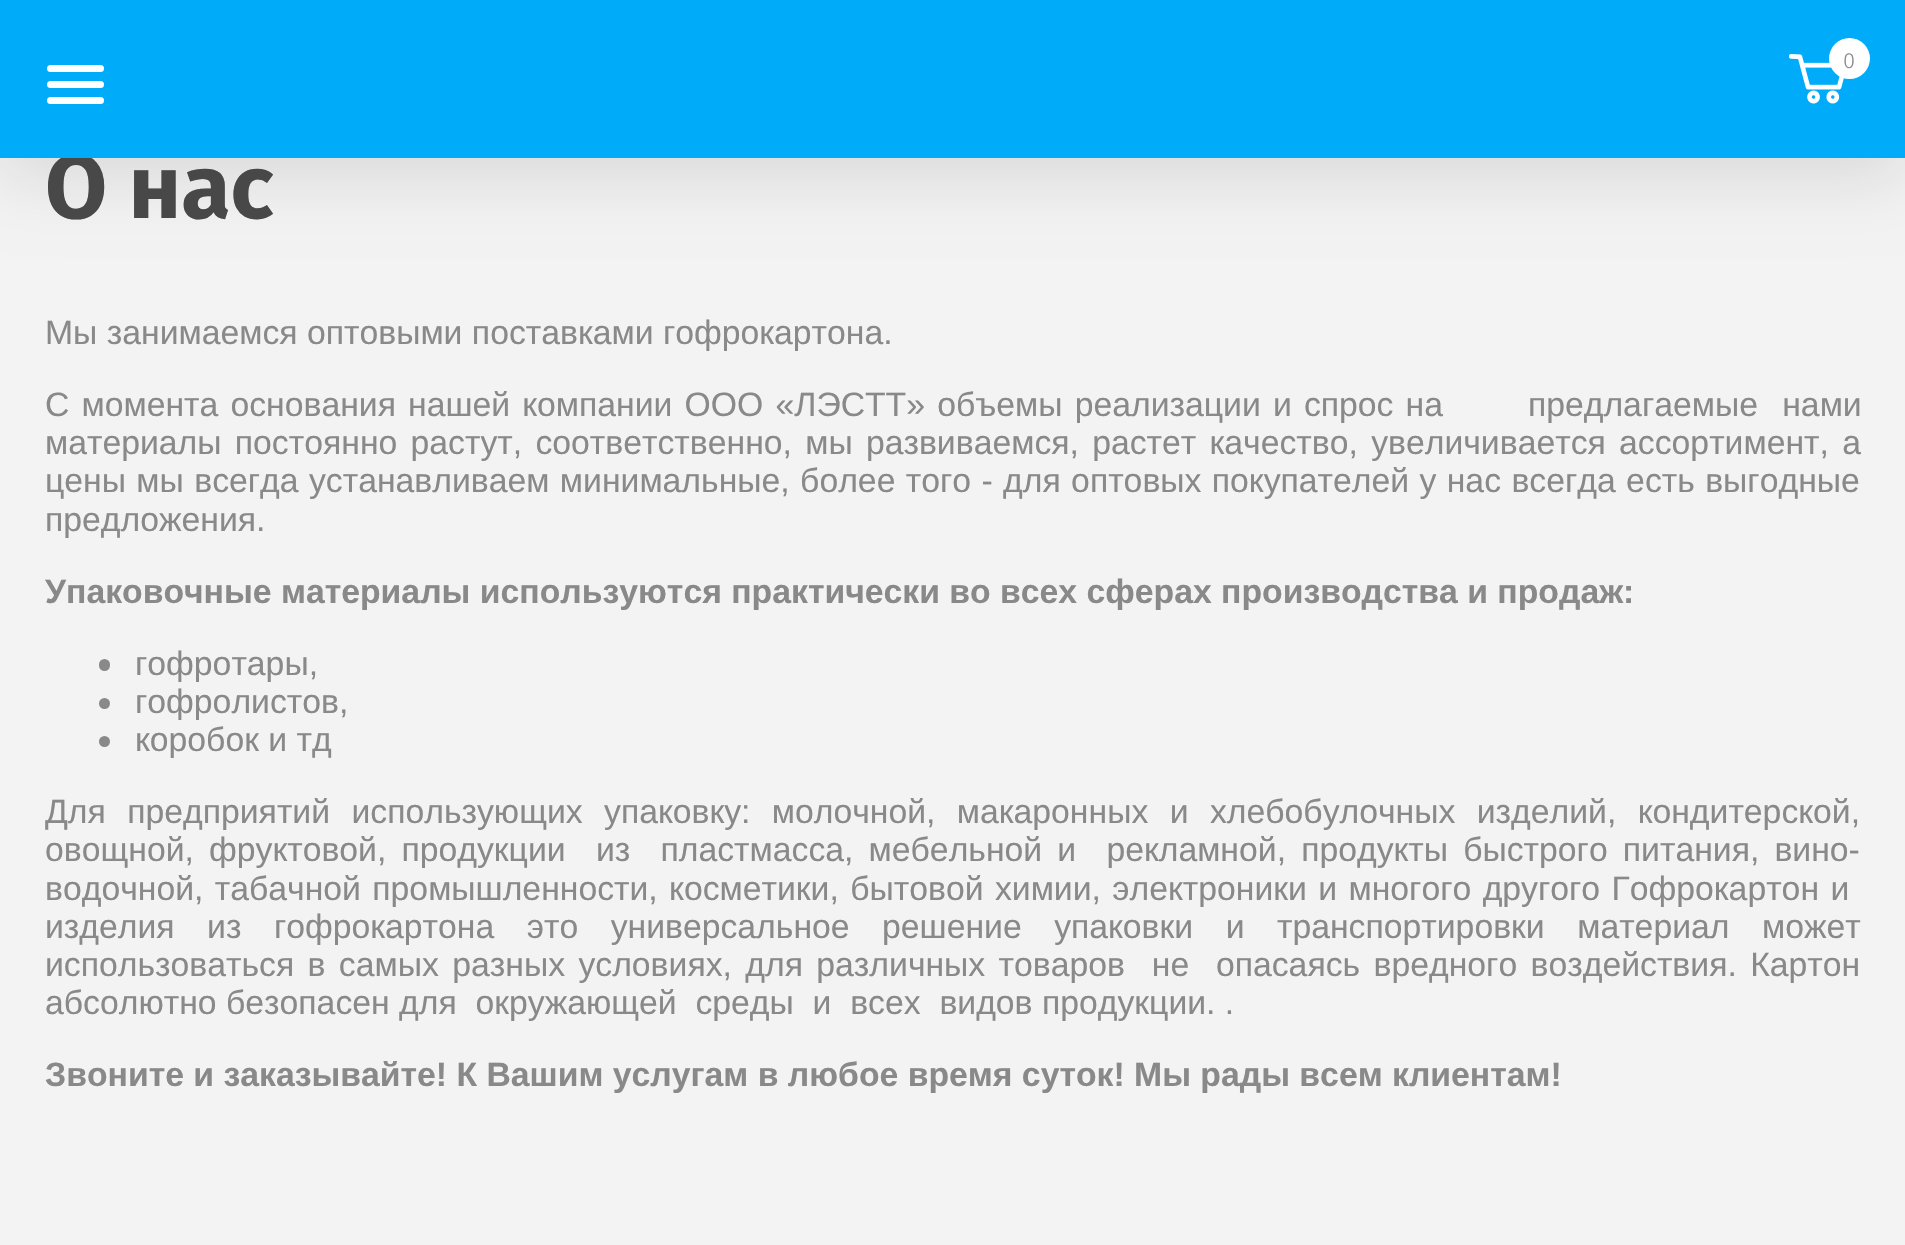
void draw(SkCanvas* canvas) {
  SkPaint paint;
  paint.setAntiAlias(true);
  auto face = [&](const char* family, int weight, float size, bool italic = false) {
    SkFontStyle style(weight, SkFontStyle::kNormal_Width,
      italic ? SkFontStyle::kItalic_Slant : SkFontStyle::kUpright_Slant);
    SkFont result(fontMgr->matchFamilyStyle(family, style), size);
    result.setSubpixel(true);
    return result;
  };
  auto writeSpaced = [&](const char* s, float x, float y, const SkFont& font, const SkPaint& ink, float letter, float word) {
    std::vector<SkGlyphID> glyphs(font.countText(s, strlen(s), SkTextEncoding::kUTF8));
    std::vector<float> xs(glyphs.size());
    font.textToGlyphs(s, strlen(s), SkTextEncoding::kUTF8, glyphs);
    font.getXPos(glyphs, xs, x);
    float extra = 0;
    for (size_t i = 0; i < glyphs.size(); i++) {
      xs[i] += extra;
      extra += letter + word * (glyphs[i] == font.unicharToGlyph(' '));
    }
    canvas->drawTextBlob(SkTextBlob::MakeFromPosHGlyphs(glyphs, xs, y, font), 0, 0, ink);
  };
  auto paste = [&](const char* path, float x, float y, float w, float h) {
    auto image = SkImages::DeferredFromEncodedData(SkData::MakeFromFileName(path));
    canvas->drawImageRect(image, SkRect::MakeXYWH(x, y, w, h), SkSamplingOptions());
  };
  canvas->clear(0xfff3f3f3);
  paint.setColor(0x1a000000);
  paint.setMaskFilter(SkMaskFilter::MakeBlur(kNormal_SkBlurStyle, 32.5f));
  canvas->drawRect(SkRect::MakeXYWH(0, 23, 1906, 157), paint);
  paint.setMaskFilter(nullptr);
  paint.setColor(0xff898989);
  canvas->drawRoundRect(SkRect::MakeXYWH(99, 659, 11, 12), 5.5f, 5.5f, paint);
  canvas->drawCircle(104.5f, 703.5f, 5.5f, paint);
  canvas->drawCircle(104.5f, 741.5f, 5.5f, paint);
  auto f0 = face("Fira Sans", 700, 90);
  paint.setColor(0xff484848);
  canvas->drawString("О нас", 45, 218, f0, paint);
  paint.setColor(0xff00abfa);
  canvas->drawRect(SkRect::MakeXYWH(0, 0, 1905, 158), paint);
  paste("img/1.png", 1789, 54, 55, 50);
  paint.setColor(0xffffffff);
  canvas->drawCircle(1849.5f, 58.5f, 20.5f, paint);
  auto f1 = face("Fira Sans", 300, 22);
  paint.setColor(0xff898989);
  canvas->drawString("0", 1843, 68, f1, paint);
  paint.setColor(0xffffffff);
  canvas->drawRoundRect(SkRect::MakeXYWH(47, 97, 57, 7), 3.5f, 3.5f, paint);
  canvas->drawRoundRect(SkRect::MakeXYWH(47, 81, 57, 7), 3.5f, 3.5f, paint);
  canvas->drawRoundRect(SkRect::MakeXYWH(47, 65, 57, 7), 3.5f, 3.5f, paint);
  auto f2 = face("Liberation Sans", 400, 33.75f);
  paint.setColor(0xff898989);
  canvas->drawString("Мы занимаемся оптовыми поставками гофрокартона.", 45, 344, f2, paint);
  writeSpaced("С момента основания нашей компании ООО «ЛЭСТТ» объемы реализации и спрос на       предлагаемые  нами", 45, 416, f2, paint, 0, 2.75f);
  writeSpaced("материалы постоянно растут, соответственно, мы развиваемся, растет качество, увеличивается ассортимент, а", 45, 454, f2, paint, 0, 3.9f);
  writeSpaced("цены мы всегда устанавливаем минимальные, более того - для оптовых покупателей у нас всегда есть выгодные", 45, 492, f2, paint, 0, 1);
  canvas->drawString("предложения.", 45, 531, f2, paint);
  auto f3 = face("Liberation Sans", 700, 33.75f);
  canvas->drawString("Упаковочные материалы используются практически во всех сферах производства и продаж:", 45, 603, f3, paint);
  {
    const struct { const char* s; float x, y; } items[] = {
      {"гофротары,", 135, 675},
      {"гофролистов,", 135, 713},
      {"коробок и тд", 135, 751},
    };
    for (auto [s, x, y] : items) {
      canvas->drawString(s, x, y, f2, paint);
    }
  }
  writeSpaced("Для предприятий использующих упаковку: молочной, макаронных и хлебобулочных изделий, кондитерской,", 45, 823, f2, paint, 0, 12);
  writeSpaced("овощной, фруктовой, продукции  из  пластмасса, мебельной и  рекламной, продукты быстрого питания, вино-", 45, 861, f2, paint, 0, 5.75f);
  writeSpaced("водочной, табачной промышленности, косметики, бытовой химии, электроники и многого другого Гофрокартон и", 45, 900, f2, paint, 0, 2);
  writeSpaced("изделия из гофрокартона это универсальное решение упаковки и транспортировки материал может", 45, 938, f2, paint, 0, 23.1f);
  writeSpaced("использоваться в самых разных условиях, для различных товаров  не  опасаясь вредного воздействия. Картон", 45, 976, f2, paint, 0, 4);
  canvas->drawString("абсолютно безопасен для  окружающей  среды  и  всех  видов продукции. .", 45, 1014, f2, paint);
  canvas->drawString("Звоните и заказывайте! К Вашим услугам в любое время суток! Мы рады всем клиентам!", 45, 1086, f3, paint);
}
